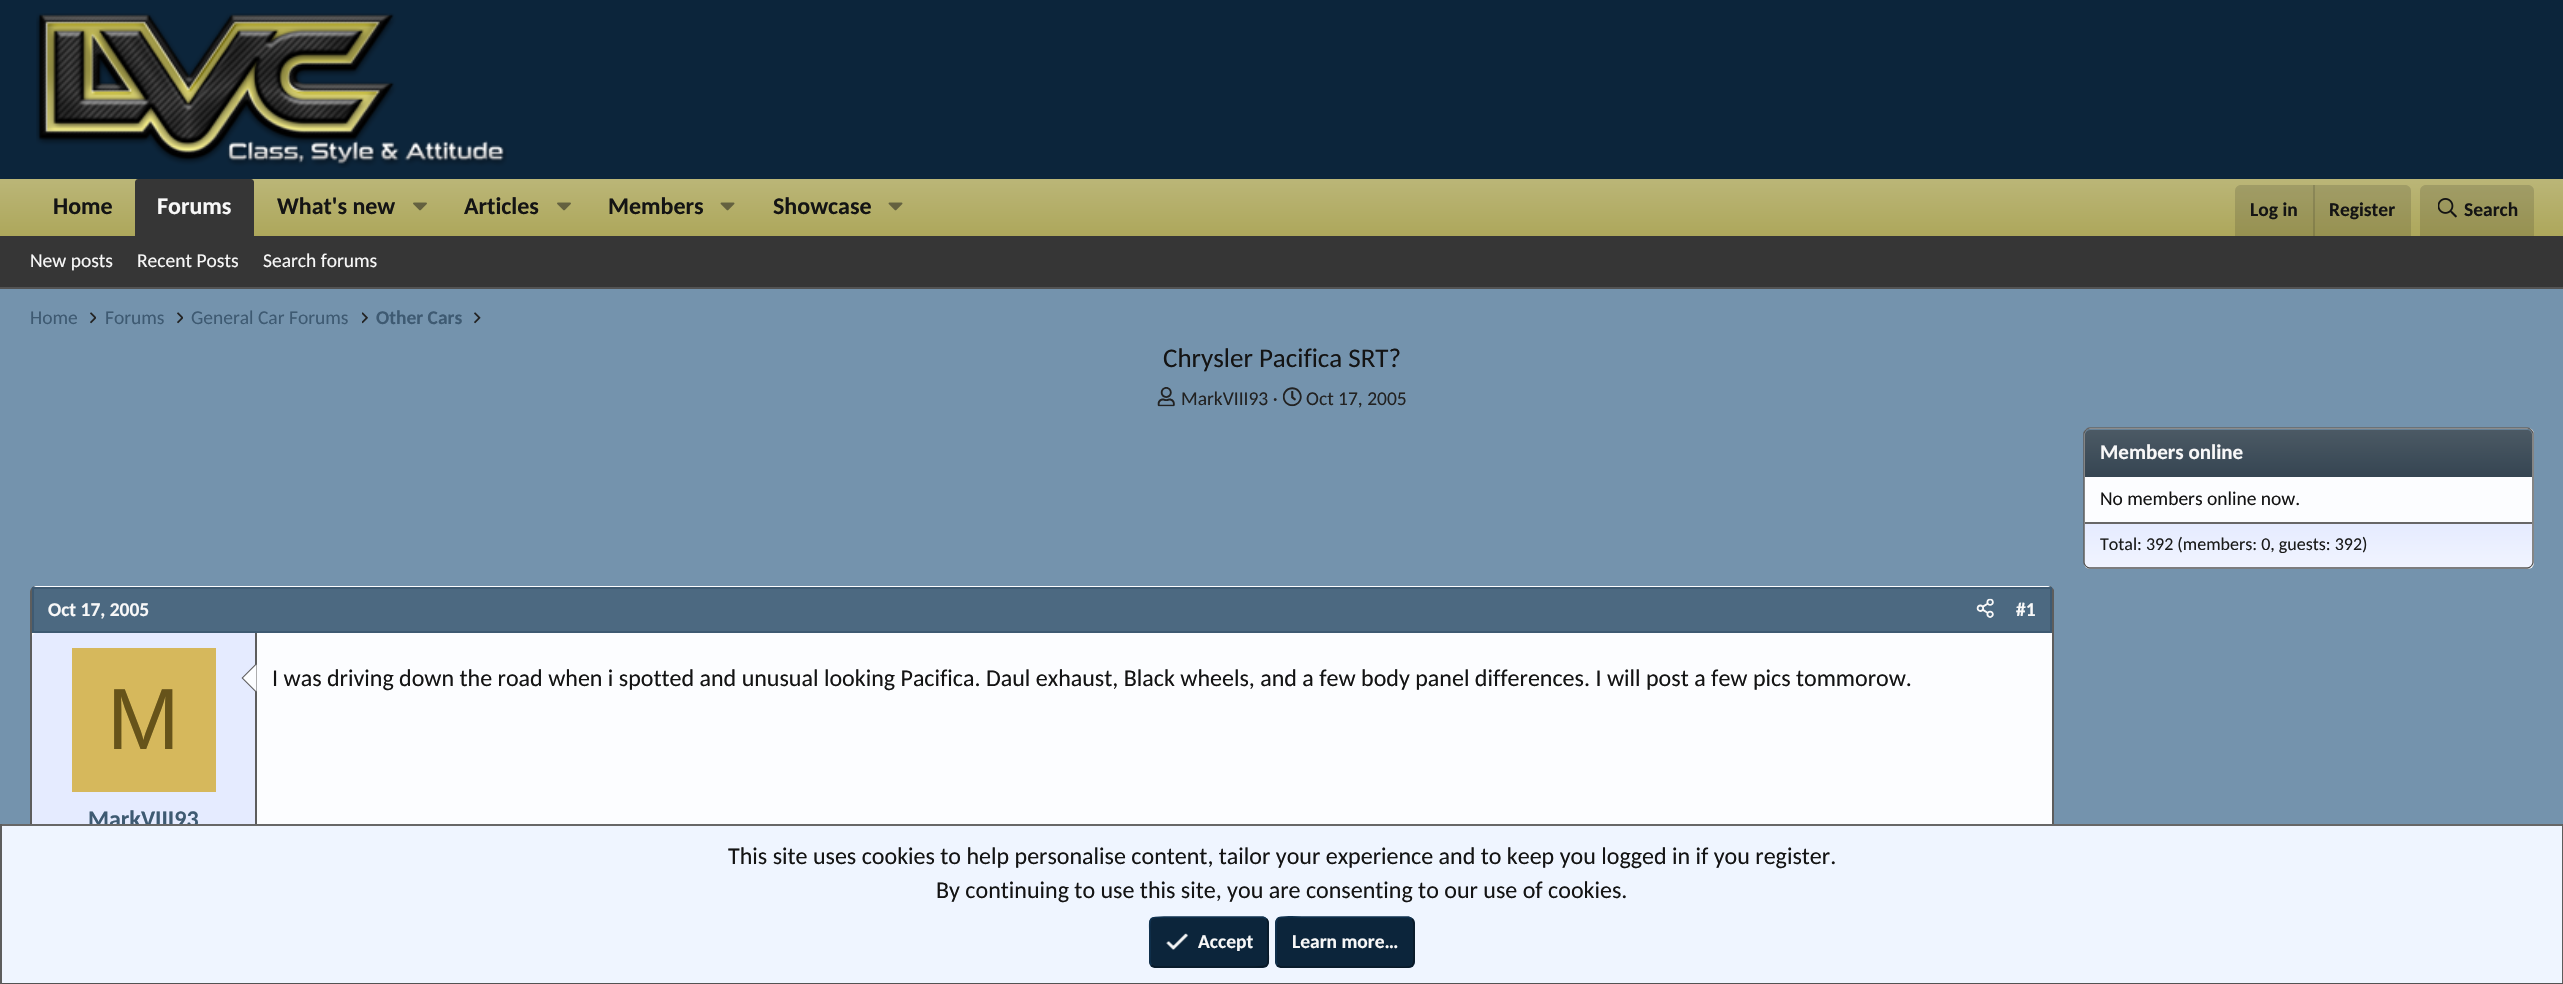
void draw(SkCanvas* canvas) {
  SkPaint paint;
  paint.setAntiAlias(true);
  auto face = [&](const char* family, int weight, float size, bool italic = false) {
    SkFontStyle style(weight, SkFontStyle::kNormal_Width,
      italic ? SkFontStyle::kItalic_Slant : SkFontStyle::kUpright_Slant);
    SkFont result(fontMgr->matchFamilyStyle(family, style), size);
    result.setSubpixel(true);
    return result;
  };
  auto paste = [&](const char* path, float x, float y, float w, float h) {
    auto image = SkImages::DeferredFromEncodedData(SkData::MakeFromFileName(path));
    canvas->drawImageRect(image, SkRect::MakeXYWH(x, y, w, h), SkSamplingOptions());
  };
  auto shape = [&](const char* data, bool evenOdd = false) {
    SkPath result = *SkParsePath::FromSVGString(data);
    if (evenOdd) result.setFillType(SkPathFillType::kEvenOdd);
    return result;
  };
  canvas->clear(0xff7493ad);
  paint.setColor(0xff0c253b);
  canvas->drawRect(SkRect::MakeXYWH(0, 0, 2563, 179), paint);
  paste("img/1.png", 36, 13, 471, 155);
  {
    const SkColor colors[] = {0xffbbb678, 0xffada75b};
    const float stops[] = {0, 1};
    const SkPoint ends[] = {{1282, 178}, {1282, 236}};
    paint.setShader(SkGradientShader::MakeLinear(ends, colors, stops, 2, SkTileMode::kClamp));
    paint.setAlpha(255);
  }
  canvas->drawRect(SkRect::MakeXYWH(0, 179, 2563, 57), paint);
  paint.setShader(nullptr);
  paint.setColor(0xff363636);
  canvas->drawPath(shape("M138 179H251C252.5 179 254 180.5 254 182V236H135V182C135 180.5 136.5 179 138 179Z"), paint);
  paste("img/2.png", 413, 202, 14, 9);
  paste("img/2.png", 557, 202, 14, 9);
  paste("img/3.png", 720, 202, 15, 9);
  paste("img/3.png", 888, 202, 15, 9);
  paint.setColor(0x26141414);
  canvas->drawPath(shape("M2241 185H2405C2408.5 185 2411 187.5 2411 191V236H2235V191C2235 187.5 2237.5 185 2241 185Z"), paint);
  canvas->drawRect(SkRect::MakeXYWH(2313, 185, 2, 51), paint);
  canvas->drawPath(shape("M2426 185H2528C2531.5 185 2534 187.5 2534 191V236H2420V191C2420 187.5 2422.5 185 2426 185Z"), paint);
  paste("img/4.png", 2438, 198, 19, 20);
  paint.setColor(0xff363636);
  canvas->drawRect(SkRect::MakeXYWH(0, 236, 2563, 51), paint);
  paint.setColor(0xff535353);
  canvas->drawRect(SkRect::MakeXYWH(0, 287, 2563, 2), paint);
  paste("img/5.png", 90, 312, 6, 12);
  paste("img/5.png", 177, 312, 6, 12);
  paste("img/6.png", 362, 312, 6, 12);
  paste("img/7.png", 474, 312, 7, 12);
  paste("img/8.png", 1157, 387, 18, 20);
  paste("img/9.png", 1282, 387, 20, 20);
  paint.setColor(0xfffcfdff);
  canvas->drawRoundRect(SkRect::MakeXYWH(2084, 428, 450, 141), 6, 6, paint);
  paint.setStroke(true);
  paint.setStrokeWidth(1.5f);
  paint.setColor(0xff676767);
  canvas->drawPath(shape("M2086 430C2087 429 2088 428 2089.5 428H2527.5C2529 428 2530 429 2531 430"), paint);
  paint.setColor(0xff5d5d5d);
  canvas->drawPath(shape("M2531 430C2532 431 2533 432 2533 433.5V562.5C2533 564 2532 565 2531 566"), paint);
  paint.setColor(0xff535353);
  canvas->drawPath(shape("M2531 566C2530 567 2529 568 2527.5 568H2089.5C2088 568 2087 567 2086 566"), paint);
  paint.setColor(0xff5d5d5d);
  canvas->drawPath(shape("M2086 566C2085 565 2084 564 2084 562.5V433.5C2084 432 2085 431 2086 430"), paint);
  paint.setStroke(false);
  {
    const SkColor colors[] = {0xff4c5a65, 0xff354552};
    const float stops[] = {0, 1};
    const SkPoint ends[] = {{2309, 429}, {2309, 477}};
    paint.setShader(SkGradientShader::MakeLinear(ends, colors, stops, 2, SkTileMode::kClamp));
    paint.setAlpha(255);
  }
  canvas->drawPath(shape("M2090 429H2527C2530 429 2532 431 2532 434V477H2085V434C2085 431 2087 429 2090 429Z"), paint);
  paint.setShader(nullptr);
  paint.setColor(0xff678297);
  canvas->drawPath(shape("M2090 430H2528C2530 430 2532 433 2532 435C2532 432 2530 429 2527 429H2090C2087 429 2085 432 2085 435C2085 433 2087 430 2090 430Z"), paint);
  {
    const SkColor colors[] = {0xffe5ebff, 0xfff1f4ff};
    const float stops[] = {0, 1};
    const SkPoint ends[] = {{2309, 524}, {2309, 567}};
    paint.setShader(SkGradientShader::MakeLinear(ends, colors, stops, 2, SkTileMode::kClamp));
    paint.setAlpha(255);
  }
  canvas->drawPath(shape("M2085 524H2532V562C2532 565 2530 567 2527 567H2090C2087 567 2085 565 2085 562Z"), paint);
  paint.setShader(nullptr);
  paint.setColor(0xff676767);
  canvas->drawRect(SkRect::MakeXYWH(2085, 522, 447, 2), paint);
  paint.setColor(0xfffcfdff);
  canvas->drawPath(shape("M36 586H2048C2050 586 2052 589 2052 592V978C2052 980 2050 982 2048 982H36C34 982 32 980 32 978V592C32 589 34 586 36 586Z"), paint);
  paint.setColor(0xff5d5d5d);
  canvas->drawPath(shape("M2050 981C2051 980 2052 979 2052 978V592C2052 590 2051 587 2049 586H2050C2052 587 2053 588 2054 590V980L2052 982Z"), paint);
  canvas->drawPath(shape("M35 586C33 587 32 590 32 592V978C32 979 32 980 33 981L32 982L30 979V592C30 590 32 586 35 586Z"), paint);
  paint.setColor(0xff4c6981);
  canvas->drawRect(SkRect::MakeXYWH(33, 588, 2018, 44), paint);
  paint.setStroke(true);
  paint.setStrokeWidth(2);
  paint.setColor(0xff3e5a72);
  canvas->drawRect(SkRect::MakeXYWH(33, 588, 2018, 44), paint);
  paste("img/10.png", 1976, 598, 18, 20);
  paint.setStroke(false);
  paint.setColor(0xffe5ebff);
  canvas->drawPath(shape("M37 633H257V983H37C34 983 32 981 32 978V638C32 635 34 633 37 633Z"), paint);
  paint.setColor(0xff5d5d5d);
  canvas->drawRect(SkRect::MakeXYWH(255, 633, 2, 191), paint);
  canvas->drawPath(shape("M256.5 663V693L241.5 678Z"), paint);
  paint.setColor(0xfffcfdff);
  canvas->drawPath(shape("M256.5 664.5V691.5L243 678Z"), paint);
  paint.setColor(0xffd6b85c);
  canvas->drawRect(SkRect::MakeXYWH(72, 648, 144, 144), paint);
  auto f0 = face("Carlito", 700, 24);
  paint.setColor(0xff141414);
  canvas->drawString("Home", 53, 214, f0, paint);
  paint.setColor(0xfff8f8f8);
  canvas->drawString("Forums", 157, 214, f0, paint);
  paint.setColor(0xff141414);
  {
    const struct { const char* s; float x, y; } items[] = {
      {"What's new", 277, 214},
      {"Articles", 464, 214},
      {"Members", 608, 214},
      {"Showcase", 773, 214},
    };
    for (auto [s, x, y] : items) {
      canvas->drawString(s, x, y, f0, paint);
    }
  }
  auto f1 = face("Carlito", 700, 19.5f);
  {
    const struct { const char* s; float x, y; } items[] = {
      {"Log in", 2250, 216},
      {"Register", 2329, 216},
      {"Search", 2464, 216},
    };
    for (auto [s, x, y] : items) {
      canvas->drawString(s, x, y, f1, paint);
    }
  }
  auto f2 = face("Carlito", 400, 19.5f);
  paint.setColor(0xfff8f8f8);
  {
    const struct { const char* s; float x, y; } items[] = {
      {"New posts", 30, 267},
      {"Recent Posts", 137, 267},
      {"Search forums", 263, 267},
    };
    for (auto [s, x, y] : items) {
      canvas->drawString(s, x, y, f2, paint);
    }
  }
  paint.setColor(0xff3e5a72);
  {
    const struct { const char* s; float x, y; } items[] = {
      {"Home", 30, 324},
      {"Forums", 105, 324},
      {"General Car Forums", 191, 324},
    };
    for (auto [s, x, y] : items) {
      canvas->drawString(s, x, y, f2, paint);
    }
  }
  canvas->drawString("Other Cars", 376, 324, f1, paint);
  auto f3 = face("Carlito", 400, 27);
  paint.setColor(0xff141414);
  canvas->drawString("Chrysler Pacifica SRT?", 1163, 367, f3, paint);
  paint.setColor(0xff222222);
  canvas->drawString("MarkVIII93 ·", 1181, 405, f2, paint);
  canvas->drawString("Oct 17, 2005", 1306, 405, f2, paint);
  auto f4 = face("Carlito", 700, 21);
  paint.setColor(0xfff8f8f8);
  canvas->drawString("Members online", 2100, 459, f4, paint);
  paint.setColor(0xff141414);
  canvas->drawString("No members online now.", 2100, 505, f2, paint);
  auto f5 = face("Carlito", 400, 18);
  paint.setColor(0xff1b1b1b);
  canvas->drawString("Total: 392 (members: 0, guests: 392)", 2100, 550, f5, paint);
  paint.setColor(0xfff8f8f8);
  canvas->drawString("Oct 17, 2005", 48, 616, f1, paint);
  canvas->drawString("#1", 2016, 616, f1, paint);
  auto f6 = face("Carlito", 400, 24);
  paint.setColor(0xff141414);
  canvas->drawString("I was driving down the road when i spotted and unusual looking Pacifica. Daul exhaust, Black wheels, and a few body panel differences. I will post a few pics tommorow.", 272, 686, f6, paint);
  auto f7 = face("Liberation Sans", 400, 87);
  paint.setColor(0xff66531a);
  canvas->drawString("M", 107, 749, f7, paint);
  paint.setColor(0xff3e5a72);
  canvas->drawString("MarkVIII93", 88, 827, f0, paint);
  {
    const struct { float x, y, w, h; SkColor color; } items[] = {
      {2, 826, 2560, 157, 0xffeff5ff},
      {0, 824, 2563, 2, 0xff676767},
      {2562, 824, 1, 160, 0xff5d5d5d},
      {0, 983, 2563, 1, 0xff535353},
      {0, 824, 2, 160, 0xff5d5d5d},
    };
    for (auto [x, y, w, h, color] : items) {
      paint.setColor(color);
      canvas->drawRect(SkRect::MakeXYWH(x, y, w, h), paint);
    }
  }
  paint.setColor(0xff141414);
  canvas->drawString("This site uses cookies to help personalise content, tailor your experience and to keep you logged in if you register.", 728, 864, f6, paint);
  canvas->drawString("By continuing to use this site, you are consenting to our use of cookies.", 936, 898, f6, paint);
  paint.setColor(0xff0c253b);
  canvas->drawRoundRect(SkRect::MakeXYWH(1149, 917, 120, 51), 6, 6, paint);
  paint.setStroke(true);
  paint.setStrokeWidth(1.5f);
  paint.setColor(0xff081826);
  canvas->drawPath(shape("M1266.5 919C1269 921.5 1268 926 1268 929V942C1268 970 1273 967 1245 967H1155C1153.5 966.5 1152.5 966 1151.5 965"), paint);
  paint.setColor(0xff103250);
  canvas->drawPath(shape("M1151.5 965C1149 962.5 1150 958 1150 955V942C1150 914 1145 917 1173 917H1263C1264.5 917.5 1265.5 918 1266.5 919"), paint);
  paste("img/11.png", 1166, 933, 23, 17);
  paint.setStroke(false);
  paint.setColor(0xfff8f8f8);
  canvas->drawString("Accept", 1198, 948, f1, paint);
  paint.setColor(0xff0c253b);
  canvas->drawRoundRect(SkRect::MakeXYWH(1275, 917, 140, 51), 6, 6, paint);
  paint.setStroke(true);
  paint.setColor(0xff081826);
  canvas->drawPath(shape("M1412 919C1414.5 921.5 1414 926 1414 929V942C1414 971.5 1418 967 1387 967H1281C1279.5 966.5 1278.5 966 1277.5 965"), paint);
  paint.setColor(0xff103250);
  canvas->drawPath(shape("M1277.5 965C1275 962.5 1276 958 1276 955V942C1276 912.5 1271.5 917 1302 917H1408.5C1410 917.5 1411 918 1412 919"), paint);
  paint.setStroke(false);
  paint.setColor(0xfff8f8f8);
  canvas->drawString("Learn more…", 1292, 948, f1, paint);
}
